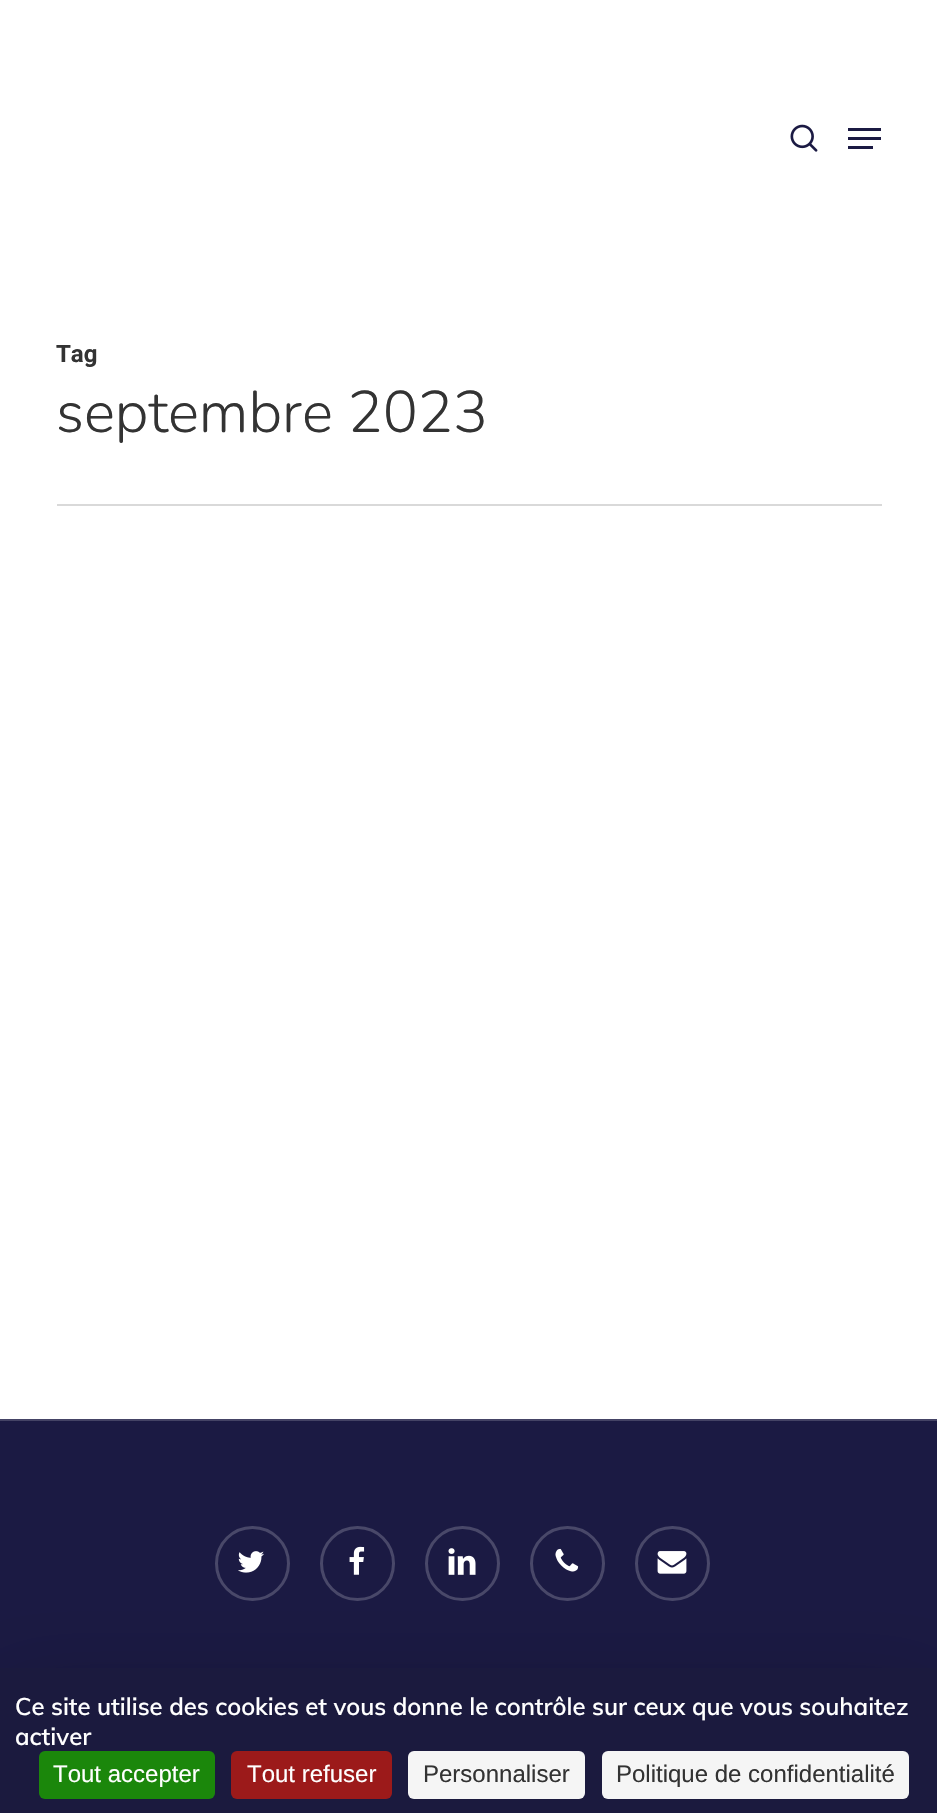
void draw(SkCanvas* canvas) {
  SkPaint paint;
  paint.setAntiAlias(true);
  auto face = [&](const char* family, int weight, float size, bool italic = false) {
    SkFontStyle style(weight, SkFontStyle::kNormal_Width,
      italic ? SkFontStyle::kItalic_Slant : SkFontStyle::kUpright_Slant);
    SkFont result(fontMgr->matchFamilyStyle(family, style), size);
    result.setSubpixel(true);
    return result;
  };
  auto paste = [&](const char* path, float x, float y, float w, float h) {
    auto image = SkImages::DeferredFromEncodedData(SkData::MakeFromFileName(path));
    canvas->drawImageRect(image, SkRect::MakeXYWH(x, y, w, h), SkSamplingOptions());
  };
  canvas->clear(0xffffffff);
  paste("img/1.png", 790, 124, 28, 28);
  {
    const struct { float x, y, w, h; SkColor color; } items[] = {
      {848, 128, 33, 3, 0xff1b1a43},
      {848, 146, 25, 3, 0xff1b1a43},
      {848, 137, 33, 3, 0xff1b1a43},
      {57, 504, 825, 2, 0xffd9d9d9},
      {0, 1421, 937, 247, 0xff1b1a43},
      {0, 1419, 937, 2, 0xff444365},
    };
    for (auto [x, y, w, h, color] : items) {
      paint.setColor(color);
      canvas->drawRect(SkRect::MakeXYWH(x, y, w, h), paint);
    }
  }
  paste("img/2.png", 238, 1551, 26, 22);
  paint.setStroke(true);
  paint.setStrokeWidth(3);
  paint.setColor(0xff494869);
  canvas->drawCircle(252.5f, 1563.5f, 36, paint);
  paste("img/3.png", 349, 1546, 16, 29);
  canvas->drawCircle(357.5f, 1563.5f, 36, paint);
  paste("img/4.png", 448, 1548, 28, 27);
  canvas->drawCircle(462.5f, 1563.5f, 36, paint);
  paste("img/5.png", 555, 1548, 24, 24);
  canvas->drawCircle(567.5f, 1563.5f, 36, paint);
  paste("img/6.png", 657, 1551, 30, 23);
  canvas->drawCircle(672.5f, 1563.5f, 36, paint);
  paint.setStroke(false);
  paint.setColor(0x40000000);
  paint.setMaskFilter(SkMaskFilter::MakeBlur(kNormal_SkBlurStyle, 45));
  canvas->drawRect(SkRect::MakeXYWH(0, 1698, 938, 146), paint);
  paint.setMaskFilter(nullptr);
  paint.setColor(0xff1b1a3e);
  canvas->drawRect(SkRect::MakeXYWH(0, 1668, 937, 145), paint);
  paint.setColor(0xff1b870b);
  canvas->drawRoundRect(SkRect::MakeXYWH(39, 1751, 176, 48), 6, 6, paint);
  paint.setColor(0xff9c1a1a);
  canvas->drawRoundRect(SkRect::MakeXYWH(231, 1751, 161, 48), 6, 6, paint);
  paint.setColor(0xfff5f5f5);
  canvas->drawRoundRect(SkRect::MakeXYWH(408, 1751, 177, 48), 6, 6, paint);
  canvas->drawRoundRect(SkRect::MakeXYWH(602, 1751, 307, 48), 6, 6, paint);
  auto f0 = face("Roboto", 700, 24);
  paint.setColor(0xff333333);
  canvas->drawString("Tag", 56, 362, f0, paint);
  auto f1 = face("Nunito", 300, 58.5f);
  canvas->drawString("septembre 2023", 56, 432, f1, paint);
  auto f2 = face("Muli", 600, 24);
  paint.setColor(0xffffffff);
  canvas->drawString("Ce site utilise des cookies et vous donne le contrôle sur ceux que vous souhaitez", 15, 1715, f2, paint);
  canvas->drawString("activer", 15, 1745, f2, paint);
  auto f3 = face("Liberation Sans", 400, 24);
  canvas->drawString("Tout accepter", 53, 1782, f3, paint);
  canvas->drawString("Tout refuser", 247, 1782, f3, paint);
  paint.setColor(0xff333333);
  canvas->drawString("Personnaliser", 423, 1782, f3, paint);
  canvas->drawString("Politique de confidentialité", 616, 1782, f3, paint);
}
